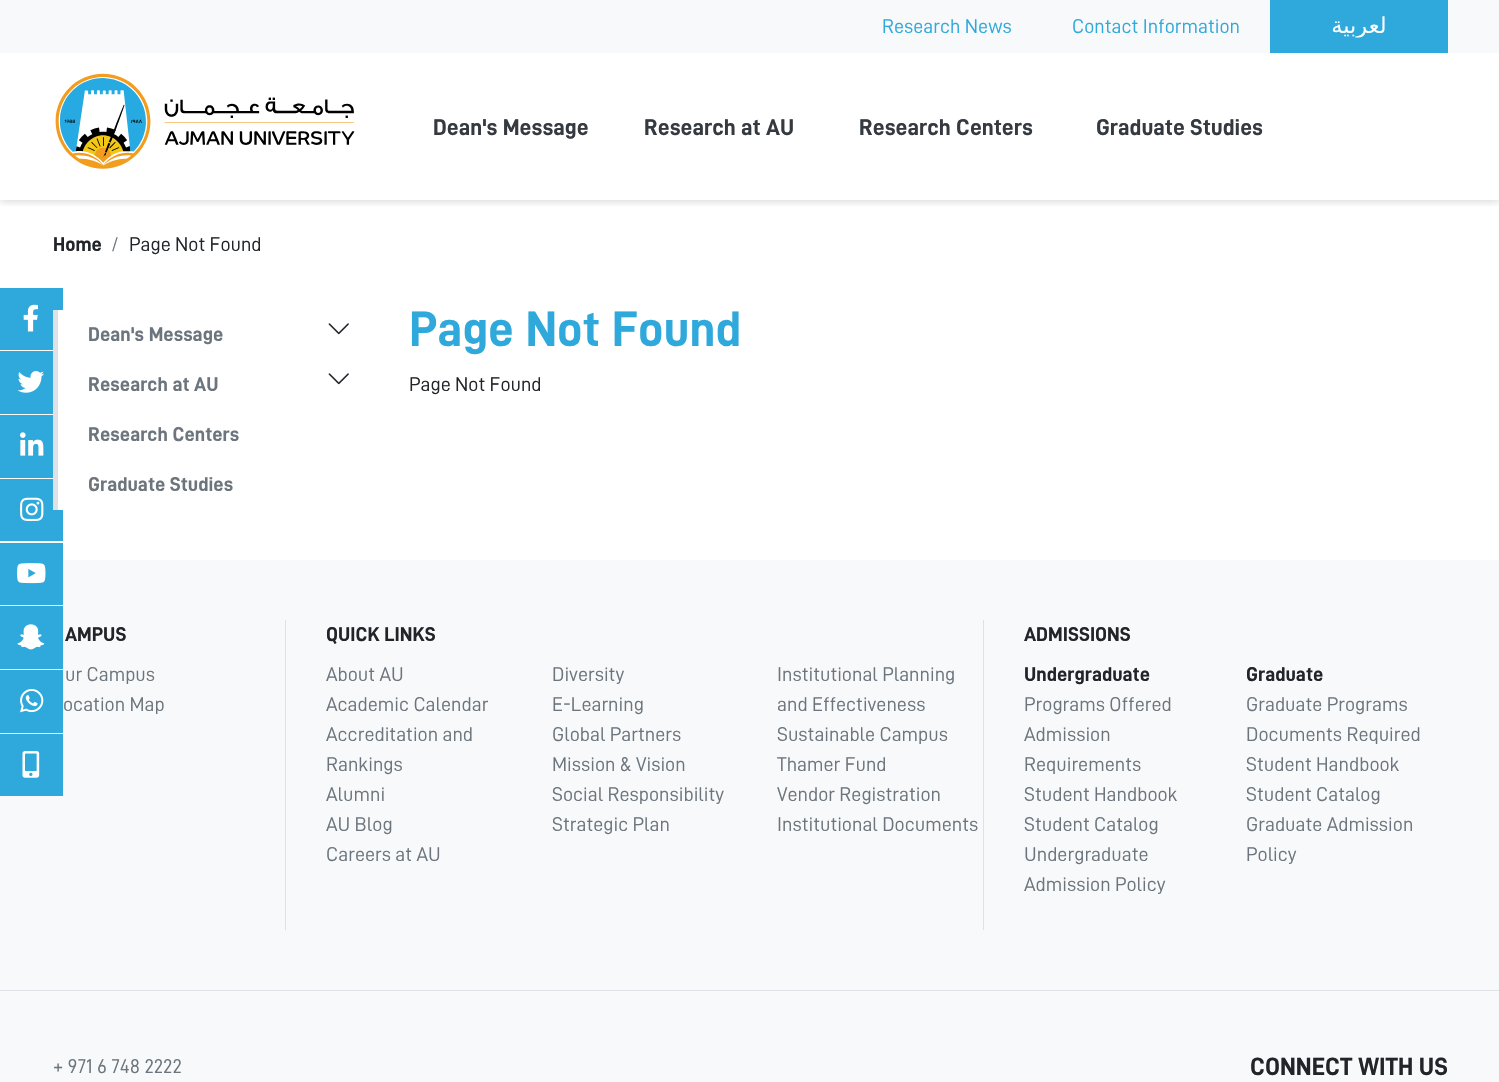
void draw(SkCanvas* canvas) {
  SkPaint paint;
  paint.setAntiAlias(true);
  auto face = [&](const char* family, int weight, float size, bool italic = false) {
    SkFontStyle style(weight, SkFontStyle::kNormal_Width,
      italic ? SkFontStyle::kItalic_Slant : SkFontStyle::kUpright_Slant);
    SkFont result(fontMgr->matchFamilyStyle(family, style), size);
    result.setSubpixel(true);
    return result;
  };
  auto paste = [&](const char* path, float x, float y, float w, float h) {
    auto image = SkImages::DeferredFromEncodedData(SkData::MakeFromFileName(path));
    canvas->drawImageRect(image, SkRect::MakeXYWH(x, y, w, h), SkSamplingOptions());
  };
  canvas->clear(0xffffffff);
  canvas->save();
  canvas->clipRect(SkRect::MakeXYWH(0, 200, 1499, 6));
  paint.setColor(0x33000000);
  paint.setMaskFilter(SkMaskFilter::MakeBlur(kNormal_SkBlurStyle, 5));
  canvas->drawRect(SkRect::MakeXYWH(0, 53, 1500, 147), paint);
  paint.setMaskFilter(nullptr);
  canvas->restore();
  paint.setColor(0xfff8f9fa);
  canvas->drawRect(SkRect::MakeXYWH(0, 0, 1499, 53), paint);
  paint.setColor(0xff2fa9db);
  canvas->drawRect(SkRect::MakeXYWH(1270, 0, 178, 53), paint);
  paste("img/1.png", 1332, 16, 53, 22);
  paste("img/2.png", 55, 73, 300, 96);
  canvas->drawRect(SkRect::MakeXYWH(0, 288, 63, 62), paint);
  paste("img/3.png", 23, 304, 15, 28);
  canvas->drawRect(SkRect::MakeXYWH(0, 351, 53, 63), paint);
  paste("img/4.png", 17, 371, 27, 22);
  canvas->drawRect(SkRect::MakeXYWH(0, 415, 53, 63), paint);
  paste("img/5.png", 20, 432, 24, 24);
  canvas->drawRect(SkRect::MakeXYWH(0, 479, 63, 62), paint);
  paste("img/6.png", 20, 497, 24, 25);
  paint.setColor(0xfff8f9fa);
  canvas->drawRect(SkRect::MakeXYWH(0, 560, 1499, 522), paint);
  paint.setColor(0xff2fa9db);
  canvas->drawRect(SkRect::MakeXYWH(0, 543, 63, 62), paint);
  paste("img/7.png", 17, 563, 29, 21);
  canvas->drawRect(SkRect::MakeXYWH(0, 606, 63, 63), paint);
  paste("img/8.png", 17, 624, 28, 26);
  canvas->drawRect(SkRect::MakeXYWH(0, 670, 63, 63), paint);
  paste("img/9.png", 20, 689, 24, 24);
  canvas->drawRect(SkRect::MakeXYWH(0, 734, 63, 62), paint);
  paste("img/10.png", 22, 751, 18, 27);
  paint.setColor(0xffffffff);
  canvas->drawRect(SkRect::MakeXYWH(58, 310, 5, 40), paint);
  paint.setColor(0xffdee2e6);
  canvas->drawRect(SkRect::MakeXYWH(53, 310, 5, 200), paint);
  paste("img/11.png", 328, 323, 21, 12);
  paste("img/11.png", 328, 373, 21, 12);
  {
    const struct { float x, y, w, h; SkColor color; } items[] = {
      {58, 479, 5, 31, 0xffffffff},
      {285, 620, 1, 310, 0xffdee2e6},
      {983, 620, 1, 310, 0xffdee2e6},
      {0, 990, 1499, 1, 0xffdee2e6},
    };
    for (auto [x, y, w, h, color] : items) {
      paint.setColor(color);
      canvas->drawRect(SkRect::MakeXYWH(x, y, w, h), paint);
    }
  }
  auto f0 = face("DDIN", 400, 20);
  paint.setColor(0xff2fa9db);
  canvas->drawString("Research News", 882, 33, f0, paint);
  canvas->drawString("Contact Information", 1072, 33, f0, paint);
  auto f1 = face("DDIN", 700, 23);
  paint.setColor(0xff343a40);
  {
    const struct { const char* s; float x, y; } items[] = {
      {"Dean's Message", 433, 135},
      {"Research at AU", 644, 135},
      {"Research Centers", 859, 135},
      {"Graduate Studies", 1096, 135},
    };
    for (auto [s, x, y] : items) {
      canvas->drawString(s, x, y, f1, paint);
    }
  }
  auto f2 = face("DDIN", 700, 20);
  paint.setColor(0xff212529);
  canvas->drawString("Home", 53, 251, f2, paint);
  paint.setColor(0xff6c757d);
  canvas->drawString("/", 111, 251, f0, paint);
  paint.setColor(0xff212529);
  canvas->drawString("Page Not Found", 129, 251, f0, paint);
  paint.setColor(0xff6c757d);
  {
    const struct { const char* s; float x, y; } items[] = {
      {"Dean's Message", 88, 341},
      {"Research at AU", 88, 391},
      {"Research Centers", 88, 441},
      {"Graduate Studies", 88, 491},
    };
    for (auto [s, x, y] : items) {
      canvas->drawString(s, x, y, f2, paint);
    }
  }
  auto f3 = face("DDIN", 700, 50);
  paint.setColor(0xff2fa9db);
  canvas->drawString("Page Not Found", 409, 346, f3, paint);
  paint.setColor(0xff212529);
  canvas->drawString("Page Not Found", 409, 391, f0, paint);
  canvas->drawString("AMPUS", 65, 641, f2, paint);
  paint.setColor(0xff6c757d);
  canvas->drawString("ur Campus", 65, 681, f0, paint);
  canvas->drawString("ocation Map", 63, 711, f0, paint);
  paint.setColor(0xff212529);
  canvas->drawString("QUICK LINKS", 326, 641, f2, paint);
  paint.setColor(0xff6c757d);
  {
    const struct { const char* s; float x, y; } items[] = {
      {"About AU", 326, 681},
      {"Diversity", 552, 681},
      {"Institutional Planning", 777, 681},
      {"and Effectiveness", 777, 711},
      {"Academic Calendar", 326, 711},
      {"E-Learning", 552, 711},
      {"Accreditation and", 326, 741},
      {"Rankings", 326, 771},
      {"Global Partners", 552, 741},
      {"Sustainable Campus", 777, 741},
      {"Mission & Vision", 552, 771},
      {"Thamer Fund", 777, 771},
      {"Alumni", 326, 801},
      {"Social Responsibility", 552, 801},
      {"Vendor Registration", 777, 801},
      {"AU Blog", 326, 831},
      {"Strategic Plan", 552, 831},
      {"Institutional Documents", 777, 831},
      {"Careers at AU", 326, 861},
    };
    for (auto [s, x, y] : items) {
      canvas->drawString(s, x, y, f0, paint);
    }
  }
  paint.setColor(0xff212529);
  {
    const struct { const char* s; float x, y; } items[] = {
      {"ADMISSIONS", 1024, 641},
      {"Undergraduate", 1024, 681},
      {"Graduate", 1246, 681},
    };
    for (auto [s, x, y] : items) {
      canvas->drawString(s, x, y, f2, paint);
    }
  }
  paint.setColor(0xff6c757d);
  {
    const struct { const char* s; float x, y; } items[] = {
      {"Programs Offered", 1024, 711},
      {"Graduate Programs", 1246, 711},
      {"Admission", 1024, 741},
      {"Requirements", 1024, 771},
      {"Documents Required", 1246, 741},
      {"Student Handbook", 1246, 771},
      {"Student Handbook", 1024, 801},
      {"Student Catalog", 1246, 801},
      {"Student Catalog", 1024, 831},
      {"Graduate Admission", 1246, 831},
      {"Policy", 1246, 861},
      {"Undergraduate", 1024, 861},
      {"Admission Policy", 1024, 891},
      {"+ 971 6 748 2222", 53, 1073},
    };
    for (auto [s, x, y] : items) {
      canvas->drawString(s, x, y, f0, paint);
    }
  }
  auto f4 = face("DDIN", 700, 25);
  paint.setColor(0xff212529);
  canvas->drawString("CONNECT WITH US", 1250, 1075, f4, paint);
}
